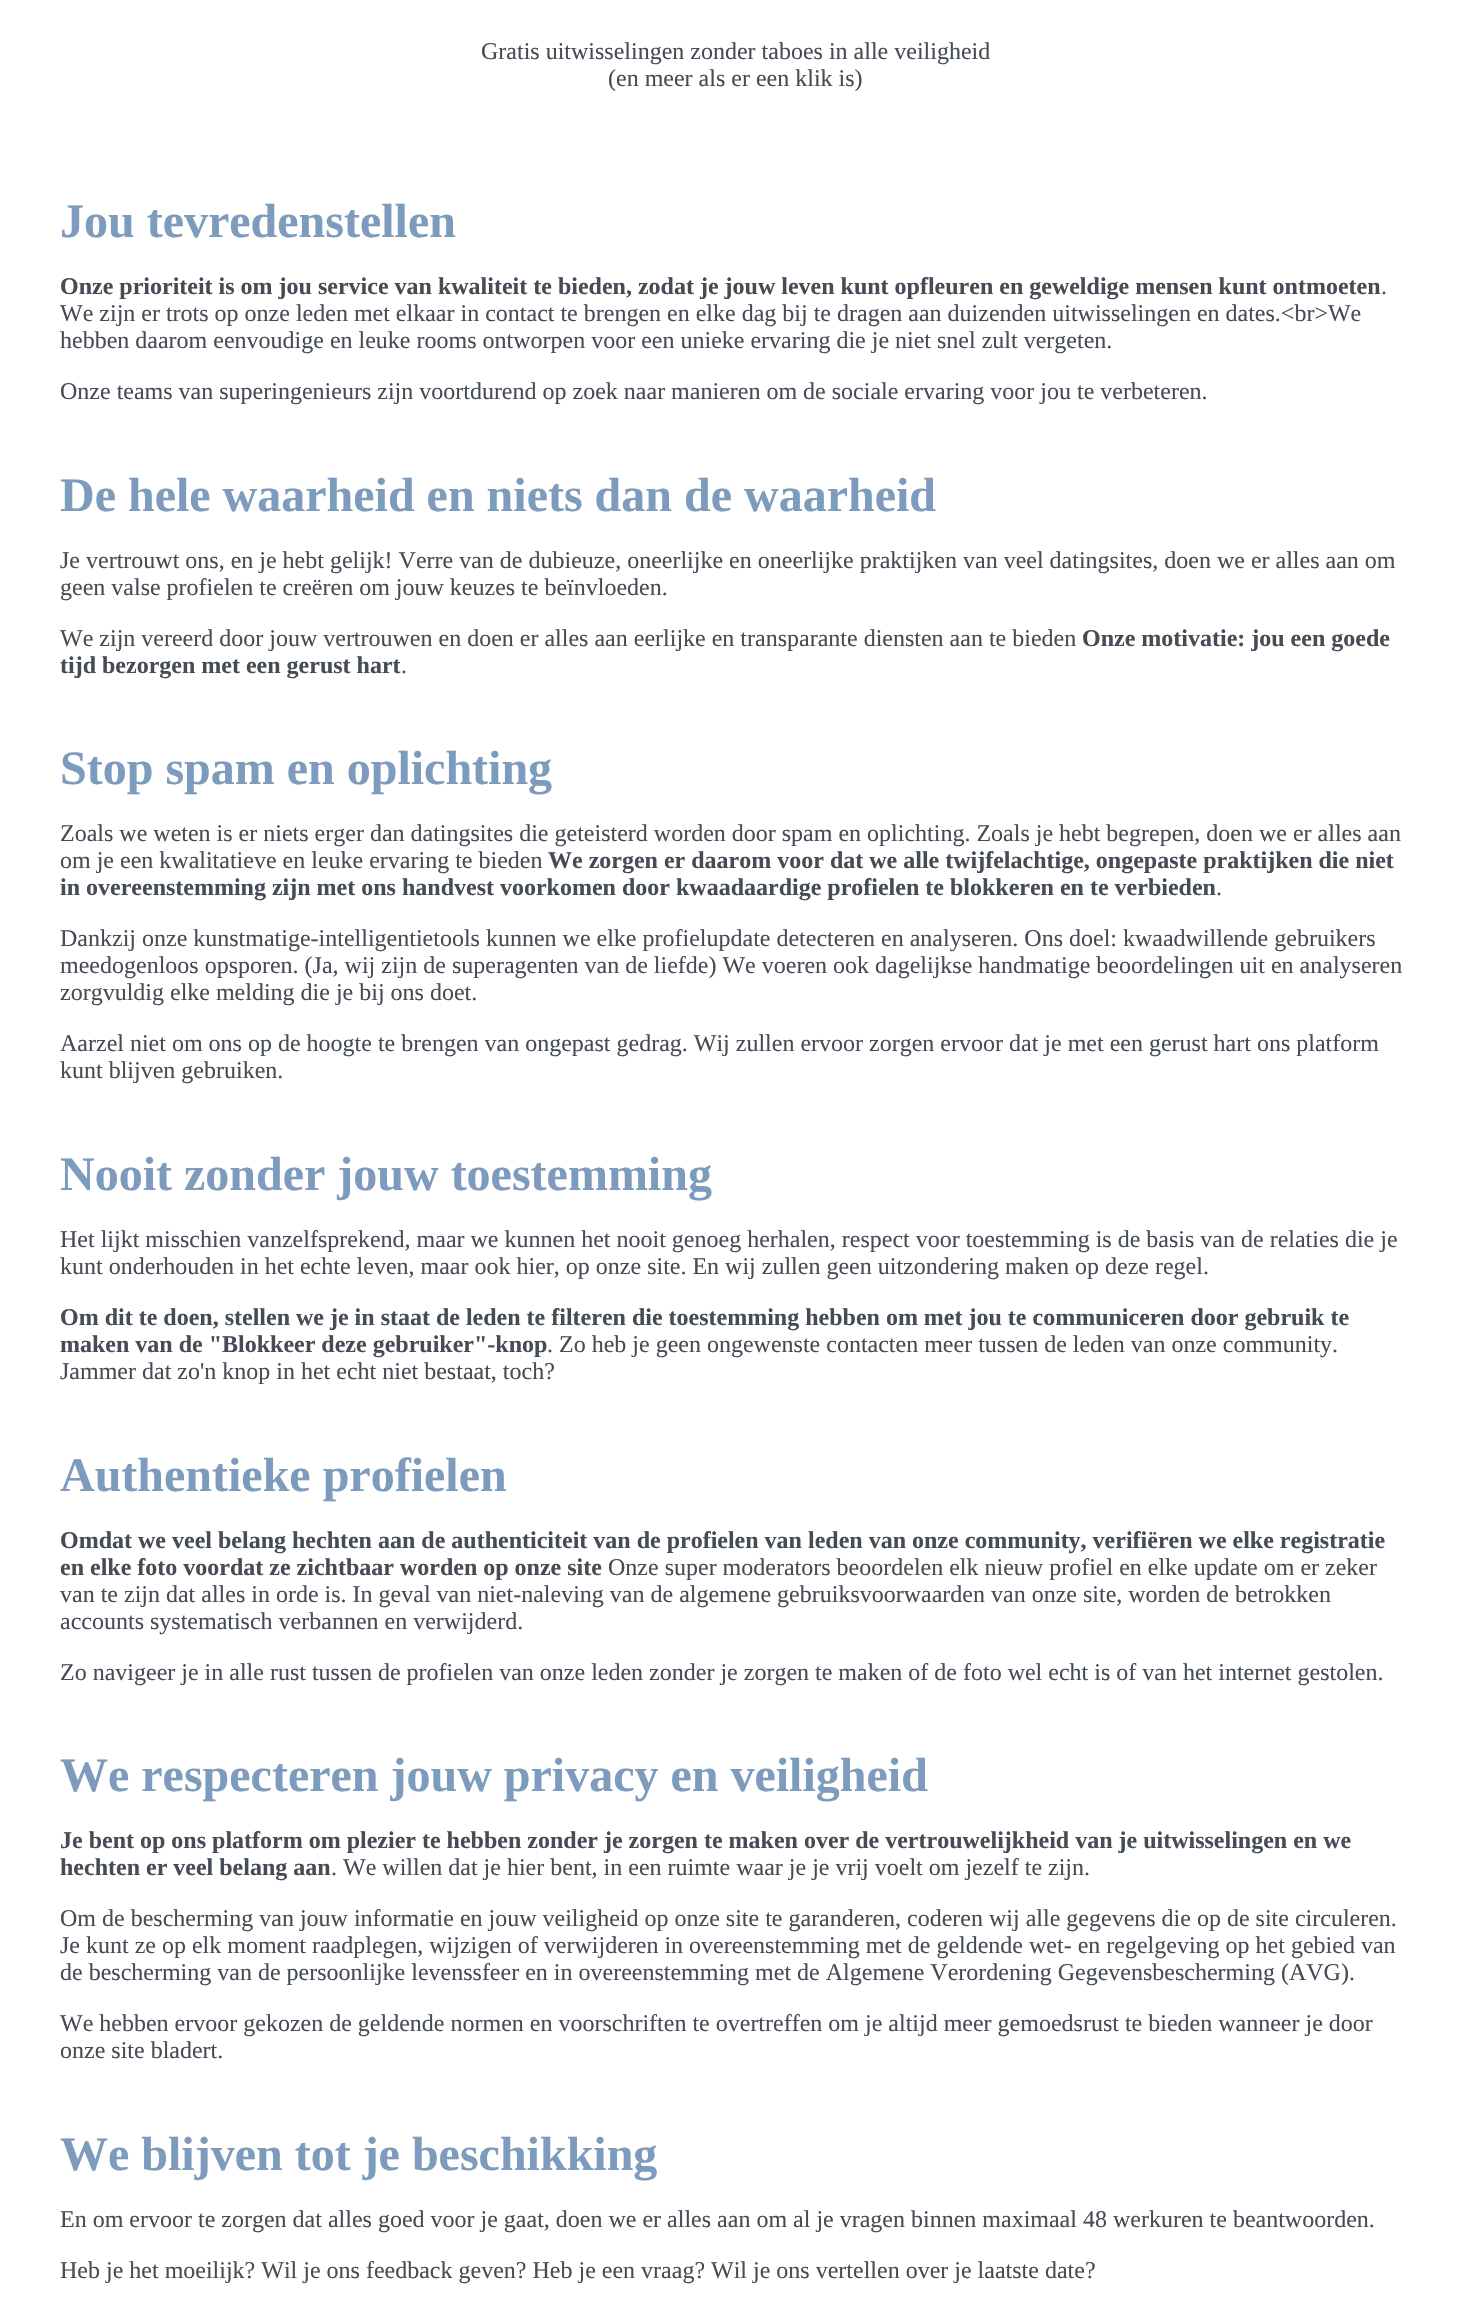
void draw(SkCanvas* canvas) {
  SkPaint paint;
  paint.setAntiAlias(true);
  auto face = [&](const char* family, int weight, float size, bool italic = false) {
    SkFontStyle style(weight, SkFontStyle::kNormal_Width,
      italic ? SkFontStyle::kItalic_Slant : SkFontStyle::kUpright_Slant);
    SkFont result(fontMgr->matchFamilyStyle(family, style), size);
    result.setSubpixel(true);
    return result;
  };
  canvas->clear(0xffffffff);
  auto f0 = face("Liberation Serif", 400, 24);
  paint.setColor(0xff464c55);
  canvas->drawString("Gratis uitwisselingen zonder taboes in alle veiligheid", 481, 59, f0, paint);
  canvas->drawString("(en meer als er een klik is)", 608, 86, f0, paint);
  auto f1 = face("Liberation Serif", 700, 48);
  paint.setColor(0xff7d9bbc);
  canvas->drawString("Jou tevredenstellen", 60, 237, f1, paint);
  auto f2 = face("Liberation Serif", 700, 24);
  paint.setColor(0xff464c55);
  canvas->drawString("Onze prioriteit is om jou service van kwaliteit te bieden, zodat je jouw leven kunt opfleuren en geweldige mensen kunt ontmoeten", 60, 294, f2, paint);
  {
    const struct { const char* s; float x, y; } items[] = {
      {".", 1381, 294},
      {"We zijn er trots op onze leden met elkaar in contact te brengen en elke dag bij te dragen aan duizenden uitwisselingen en dates.<br>We", 60, 321},
      {"hebben daarom eenvoudige en leuke rooms ontworpen voor een unieke ervaring die je niet snel zult vergeten.", 60, 348},
      {"Onze teams van superingenieurs zijn voortdurend op zoek naar manieren om de sociale ervaring voor jou te verbeteren.", 60, 399},
    };
    for (auto [s, x, y] : items) {
      canvas->drawString(s, x, y, f0, paint);
    }
  }
  paint.setColor(0xff7d9bbc);
  canvas->drawString("De hele waarheid en niets dan de waarheid", 60, 511, f1, paint);
  paint.setColor(0xff464c55);
  {
    const struct { const char* s; float x, y; } items[] = {
      {"Je vertrouwt ons, en je hebt gelijk! Verre van de dubieuze, oneerlijke en oneerlijke praktijken van veel datingsites, doen we er alles aan om", 60, 568},
      {"geen valse profielen te creëren om jouw keuzes te beïnvloeden.", 60, 595},
      {"We zijn vereerd door jouw vertrouwen en doen er alles aan eerlijke en transparante diensten aan te bieden", 60, 646},
    };
    for (auto [s, x, y] : items) {
      canvas->drawString(s, x, y, f0, paint);
    }
  }
  canvas->drawString("Onze motivatie: jou een goede", 1082, 646, f2, paint);
  canvas->drawString("tijd bezorgen met een gerust hart", 60, 673, f2, paint);
  canvas->drawString(".", 401, 673, f0, paint);
  paint.setColor(0xff7d9bbc);
  canvas->drawString("Stop spam en oplichting", 60, 784, f1, paint);
  paint.setColor(0xff464c55);
  canvas->drawString("Zoals we weten is er niets erger dan datingsites die geteisterd worden door spam en oplichting. Zoals je hebt begrepen, doen we er alles aan", 60, 841, f0, paint);
  canvas->drawString("om je een kwalitatieve en leuke ervaring te bieden", 60, 868, f0, paint);
  canvas->drawString("We zorgen er daarom voor dat we alle twijfelachtige, ongepaste praktijken die niet", 548, 868, f2, paint);
  canvas->drawString("in overeenstemming zijn met ons handvest voorkomen door kwaadaardige profielen te blokkeren en te verbieden", 60, 895, f2, paint);
  {
    const struct { const char* s; float x, y; } items[] = {
      {".", 1216, 895},
      {"Dankzij onze kunstmatige-intelligentietools kunnen we elke profielupdate detecteren en analyseren. Ons doel: kwaadwillende gebruikers", 60, 946},
      {"meedogenloos opsporen. (Ja, wij zijn de superagenten van de liefde) We voeren ook dagelijkse handmatige beoordelingen uit en analyseren", 60, 973},
      {"zorgvuldig elke melding die je bij ons doet.", 60, 1000},
      {"Aarzel niet om ons op de hoogte te brengen van ongepast gedrag. Wij zullen ervoor zorgen ervoor dat je met een gerust hart ons platform", 60, 1051},
      {"kunt blijven gebruiken.", 60, 1078},
    };
    for (auto [s, x, y] : items) {
      canvas->drawString(s, x, y, f0, paint);
    }
  }
  paint.setColor(0xff7d9bbc);
  canvas->drawString("Nooit zonder jouw toestemming", 60, 1190, f1, paint);
  paint.setColor(0xff464c55);
  canvas->drawString("Het lijkt misschien vanzelfsprekend, maar we kunnen het nooit genoeg herhalen, respect voor toestemming is de basis van de relaties die je", 60, 1247, f0, paint);
  canvas->drawString("kunt onderhouden in het echte leven, maar ook hier, op onze site. En wij zullen geen uitzondering maken op deze regel.", 60, 1274, f0, paint);
  canvas->drawString("Om dit te doen, stellen we je in staat de leden te filteren die toestemming hebben om met jou te communiceren door gebruik te", 60, 1325, f2, paint);
  canvas->drawString("maken van de \"Blokkeer deze gebruiker\"-knop", 60, 1352, f2, paint);
  canvas->drawString(". Zo heb je geen ongewenste contacten meer tussen de leden van onze community.", 547, 1352, f0, paint);
  canvas->drawString("Jammer dat zo'n knop in het echt niet bestaat, toch?", 60, 1379, f0, paint);
  paint.setColor(0xff7d9bbc);
  canvas->drawString("Authentieke profielen", 60, 1491, f1, paint);
  paint.setColor(0xff464c55);
  canvas->drawString("Omdat we veel belang hechten aan de authenticiteit van de profielen van leden van onze community, verifiëren we elke registratie", 60, 1548, f2, paint);
  canvas->drawString("en elke foto voordat ze zichtbaar worden op onze site", 60, 1575, f2, paint);
  {
    const struct { const char* s; float x, y; } items[] = {
      {"Onze super moderators beoordelen elk nieuw profiel en elke update om er zeker", 608, 1575},
      {"van te zijn dat alles in orde is. In geval van niet-naleving van de algemene gebruiksvoorwaarden van onze site, worden de betrokken", 60, 1602},
      {"accounts systematisch verbannen en verwijderd.", 60, 1629},
      {"Zo navigeer je in alle rust tussen de profielen van onze leden zonder je zorgen te maken of de foto wel echt is of van het internet gestolen.", 60, 1680},
    };
    for (auto [s, x, y] : items) {
      canvas->drawString(s, x, y, f0, paint);
    }
  }
  paint.setColor(0xff7d9bbc);
  canvas->drawString("We respecteren jouw privacy en veiligheid", 60, 1791, f1, paint);
  paint.setColor(0xff464c55);
  canvas->drawString("Je bent op ons platform om plezier te hebben zonder je zorgen te maken over de vertrouwelijkheid van je uitwisselingen en we", 60, 1848, f2, paint);
  canvas->drawString("hechten er veel belang aan", 60, 1875, f2, paint);
  {
    const struct { const char* s; float x, y; } items[] = {
      {". We willen dat je hier bent, in een ruimte waar je je vrij voelt om jezelf te zijn.", 331, 1875},
      {"Om de bescherming van jouw informatie en jouw veiligheid op onze site te garanderen, coderen wij alle gegevens die op de site circuleren.", 60, 1926},
      {"Je kunt ze op elk moment raadplegen, wijzigen of verwijderen in overeenstemming met de geldende wet- en regelgeving op het gebied van", 60, 1953},
      {"de bescherming van de persoonlijke levenssfeer en in overeenstemming met de Algemene Verordening Gegevensbescherming (AVG).", 60, 1980},
      {"We hebben ervoor gekozen de geldende normen en voorschriften te overtreffen om je altijd meer gemoedsrust te bieden wanneer je door", 60, 2031},
      {"onze site bladert.", 60, 2058},
    };
    for (auto [s, x, y] : items) {
      canvas->drawString(s, x, y, f0, paint);
    }
  }
  paint.setColor(0xff7d9bbc);
  canvas->drawString("We blijven tot je beschikking", 60, 2170, f1, paint);
  paint.setColor(0xff464c55);
  canvas->drawString("En om ervoor te zorgen dat alles goed voor je gaat, doen we er alles aan om al je vragen binnen maximaal 48 werkuren te beantwoorden.", 60, 2227, f0, paint);
  canvas->drawString("Heb je het moeilijk? Wil je ons feedback geven? Heb je een vraag? Wil je ons vertellen over je laatste date?", 60, 2278, f0, paint);
}
